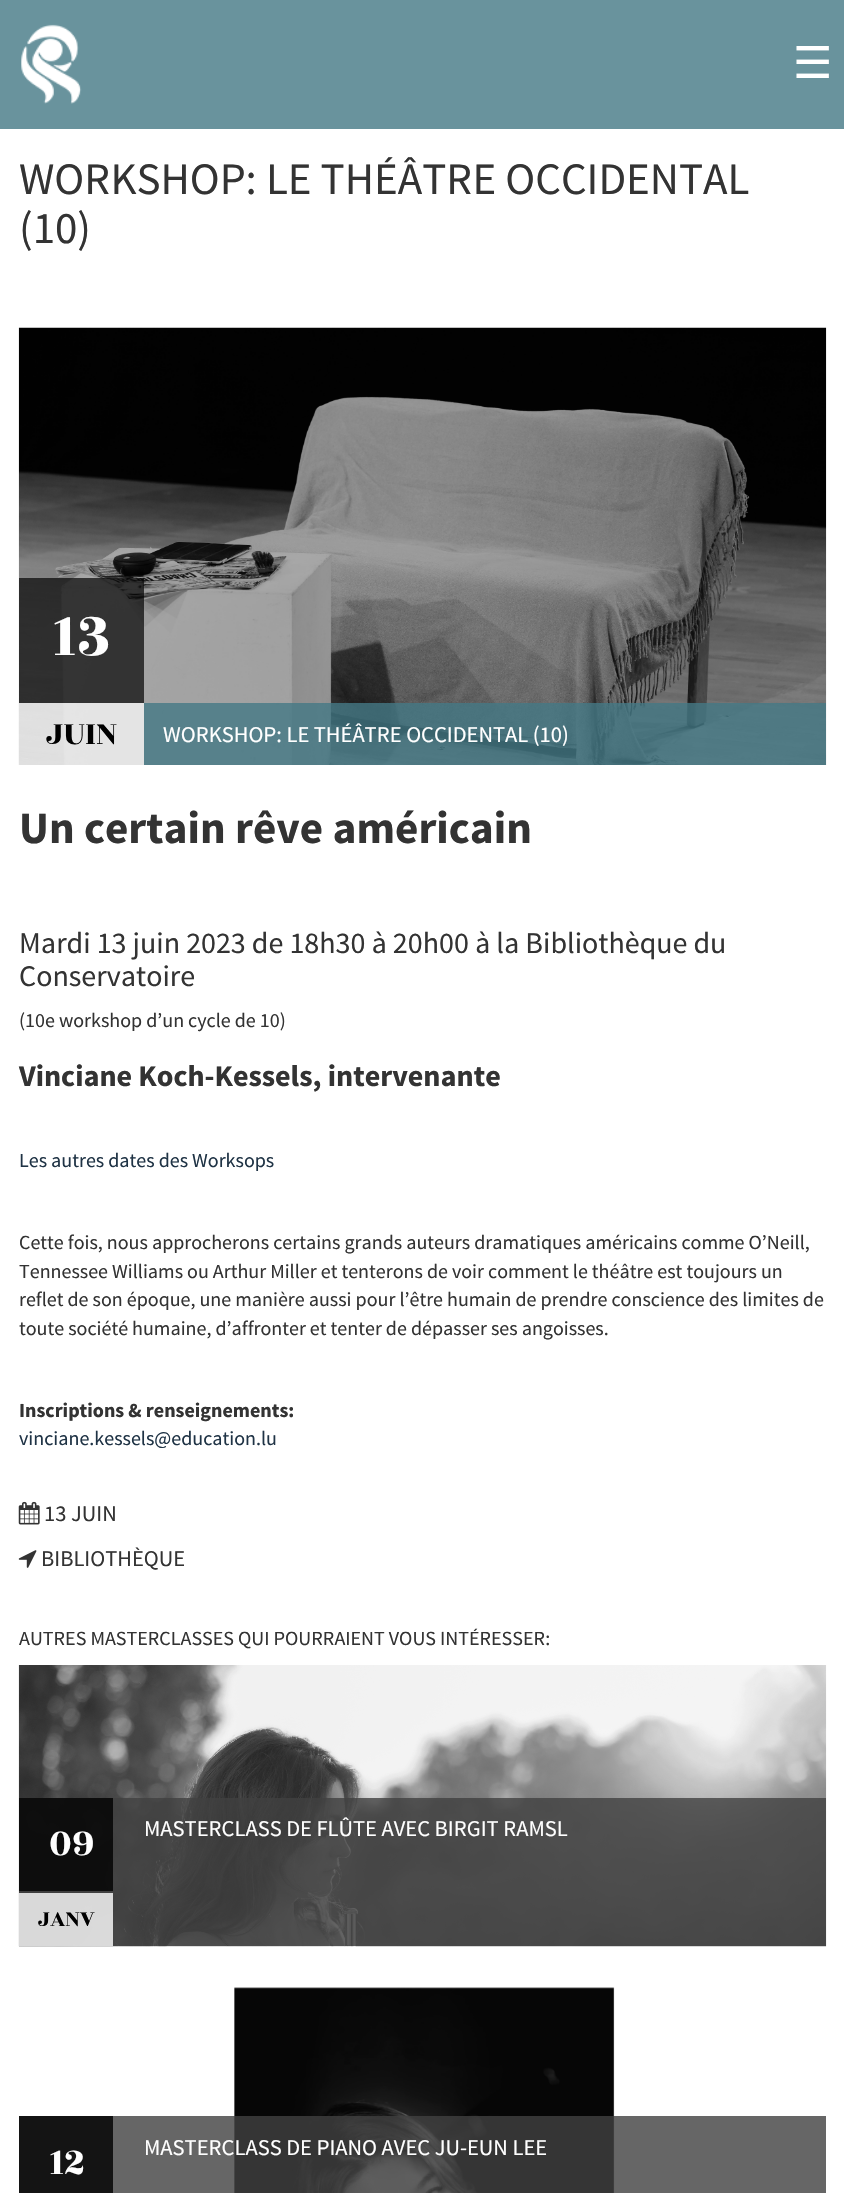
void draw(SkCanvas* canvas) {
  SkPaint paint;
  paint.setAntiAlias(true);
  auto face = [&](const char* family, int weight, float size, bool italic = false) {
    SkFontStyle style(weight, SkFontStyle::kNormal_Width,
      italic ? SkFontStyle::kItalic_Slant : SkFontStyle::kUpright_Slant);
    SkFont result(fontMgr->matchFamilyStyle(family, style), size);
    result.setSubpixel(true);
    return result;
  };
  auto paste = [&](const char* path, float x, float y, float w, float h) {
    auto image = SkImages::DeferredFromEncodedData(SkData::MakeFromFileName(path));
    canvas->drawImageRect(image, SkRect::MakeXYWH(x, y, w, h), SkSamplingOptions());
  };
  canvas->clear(0xffffffff);
  paint.setColor(0xff69939d);
  canvas->drawRect(SkRect::MakeXYWH(0, 0, 844, 129), paint);
  paste("img/1.png", 21, 24, 61, 80);
  paste("img/2.png", 18, 327, 809, 438);
  {
    const struct { float x, y, w, h; SkColor color; } items[] = {
      {19, 578, 125, 125, 0xb0000000},
      {19, 703, 125, 62, 0xb3ffffff},
      {144, 703, 682, 62, 0xcc437885},
    };
    for (auto [x, y, w, h, color] : items) {
      paint.setColor(color);
      canvas->drawRect(SkRect::MakeXYWH(x, y, w, h), paint);
    }
  }
  paste("img/3.png", 18, 1501, 22, 24);
  paste("img/4.png", 18, 1550, 19, 18);
  paste("img/5.png", 18, 1665, 809, 282);
  {
    const struct { float x, y, w, h; SkColor color; } items[] = {
      {19, 1798, 807, 148, 0xcc404040},
      {19, 1798, 94, 93, 0xcc000000},
      {19, 1893, 94, 53, 0xccffffff},
    };
    for (auto [x, y, w, h, color] : items) {
      paint.setColor(color);
      canvas->drawRect(SkRect::MakeXYWH(x, y, w, h), paint);
    }
  }
  paste("img/6.png", 19, 1984, 807, 209);
  paint.setColor(0xcc404040);
  canvas->drawRect(SkRect::MakeXYWH(113, 2116, 713, 77), paint);
  paint.setColor(0xff141414);
  canvas->drawRect(SkRect::MakeXYWH(19, 2116, 94, 77), paint);
  auto f0 = face("DejaVu Sans", 400, 44);
  paint.setColor(0xffffffff);
  canvas->drawString("☰", 793, 78, f0, paint);
  auto f1 = face("Source Sans Pro", 400, 45);
  paint.setColor(0xff333333);
  canvas->drawString("WORKSHOP: LE THÉÂTRE OCCIDENTAL", 19, 194, f1, paint);
  canvas->drawString("(10)", 19, 243, f1, paint);
  auto f2 = face("Rozha One", 400, 65);
  paint.setColor(0xffffffff);
  canvas->drawString("13", 52, 655, f2, paint);
  auto f3 = face("Rozha One", 400, 35);
  paint.setColor(0xff000000);
  canvas->drawString("JUIN", 46, 744, f3, paint);
  auto f4 = face("Source Sans Pro", 400, 22.5f);
  paint.setColor(0xffffffff);
  canvas->drawString("WORKSHOP: LE THÉÂTRE OCCIDENTAL (10)", 163, 742, f4, paint);
  auto f5 = face("Source Sans Pro", 700, 45);
  paint.setColor(0xff333333);
  canvas->drawString("Un certain rêve américain", 19, 843, f5, paint);
  auto f6 = face("Source Sans Pro", 400, 30);
  canvas->drawString("Mardi 13 juin 2023 de 18h30 à 20h00 à la Bibliothèque du", 19, 953, f6, paint);
  canvas->drawString("Conservatoire", 19, 986, f6, paint);
  auto f7 = face("Source Sans Pro", 400, 20);
  canvas->drawString("(10e workshop d’un cycle de 10)", 19, 1027, f7, paint);
  auto f8 = face("Source Sans Pro", 700, 30);
  canvas->drawString("Vinciane Koch-Kessels, intervenante", 19, 1086, f8, paint);
  paint.setColor(0xff1f3345);
  canvas->drawString("Les autres dates des Worksops", 19, 1167, f7, paint);
  paint.setColor(0xff333333);
  {
    const struct { const char* s; float x, y; } items[] = {
      {"Cette fois, nous approcherons certains grands auteurs dramatiques américains comme O’Neill,", 19, 1249},
      {"Tennessee Williams ou Arthur Miller et tenterons de voir comment le théâtre est toujours un", 19, 1278},
      {"reflet de son époque, une manière aussi pour l’être humain de prendre conscience des limites de", 19, 1306},
      {"toute société humaine, d’affronter et tenter de dépasser ses angoisses.", 19, 1335},
    };
    for (auto [s, x, y] : items) {
      canvas->drawString(s, x, y, f7, paint);
    }
  }
  auto f9 = face("Source Sans Pro", 700, 20);
  canvas->drawString("Inscriptions & renseignements:", 19, 1417, f9, paint);
  paint.setColor(0xff1f3345);
  canvas->drawString("vinciane.kessels@education.lu", 19, 1445, f7, paint);
  paint.setColor(0xff333333);
  canvas->drawString("13 JUIN", 44, 1521, f4, paint);
  canvas->drawString("BIBLIOTHÈQUE", 41, 1566, f4, paint);
  canvas->drawString("AUTRES MASTERCLASSES QUI POURRAIENT VOUS INTÉRESSER:", 19, 1645, f7, paint);
  paint.setColor(0xffffffff);
  canvas->drawString("MASTERCLASS DE FLÛTE AVEC BIRGIT RAMSL", 144, 1836, f4, paint);
  auto f10 = face("Rozha One", 400, 40);
  canvas->drawString("09", 49, 1855, f10, paint);
  auto f11 = face("Rozha One", 400, 24);
  paint.setColor(0xff000000);
  canvas->drawString("JANV", 38, 1926, f11, paint);
  paint.setColor(0xffffffff);
  canvas->drawString("MASTERCLASS DE PIANO AVEC JU-EUN LEE", 144, 2155, f4, paint);
  canvas->drawString("12", 49, 2174, f10, paint);
}
